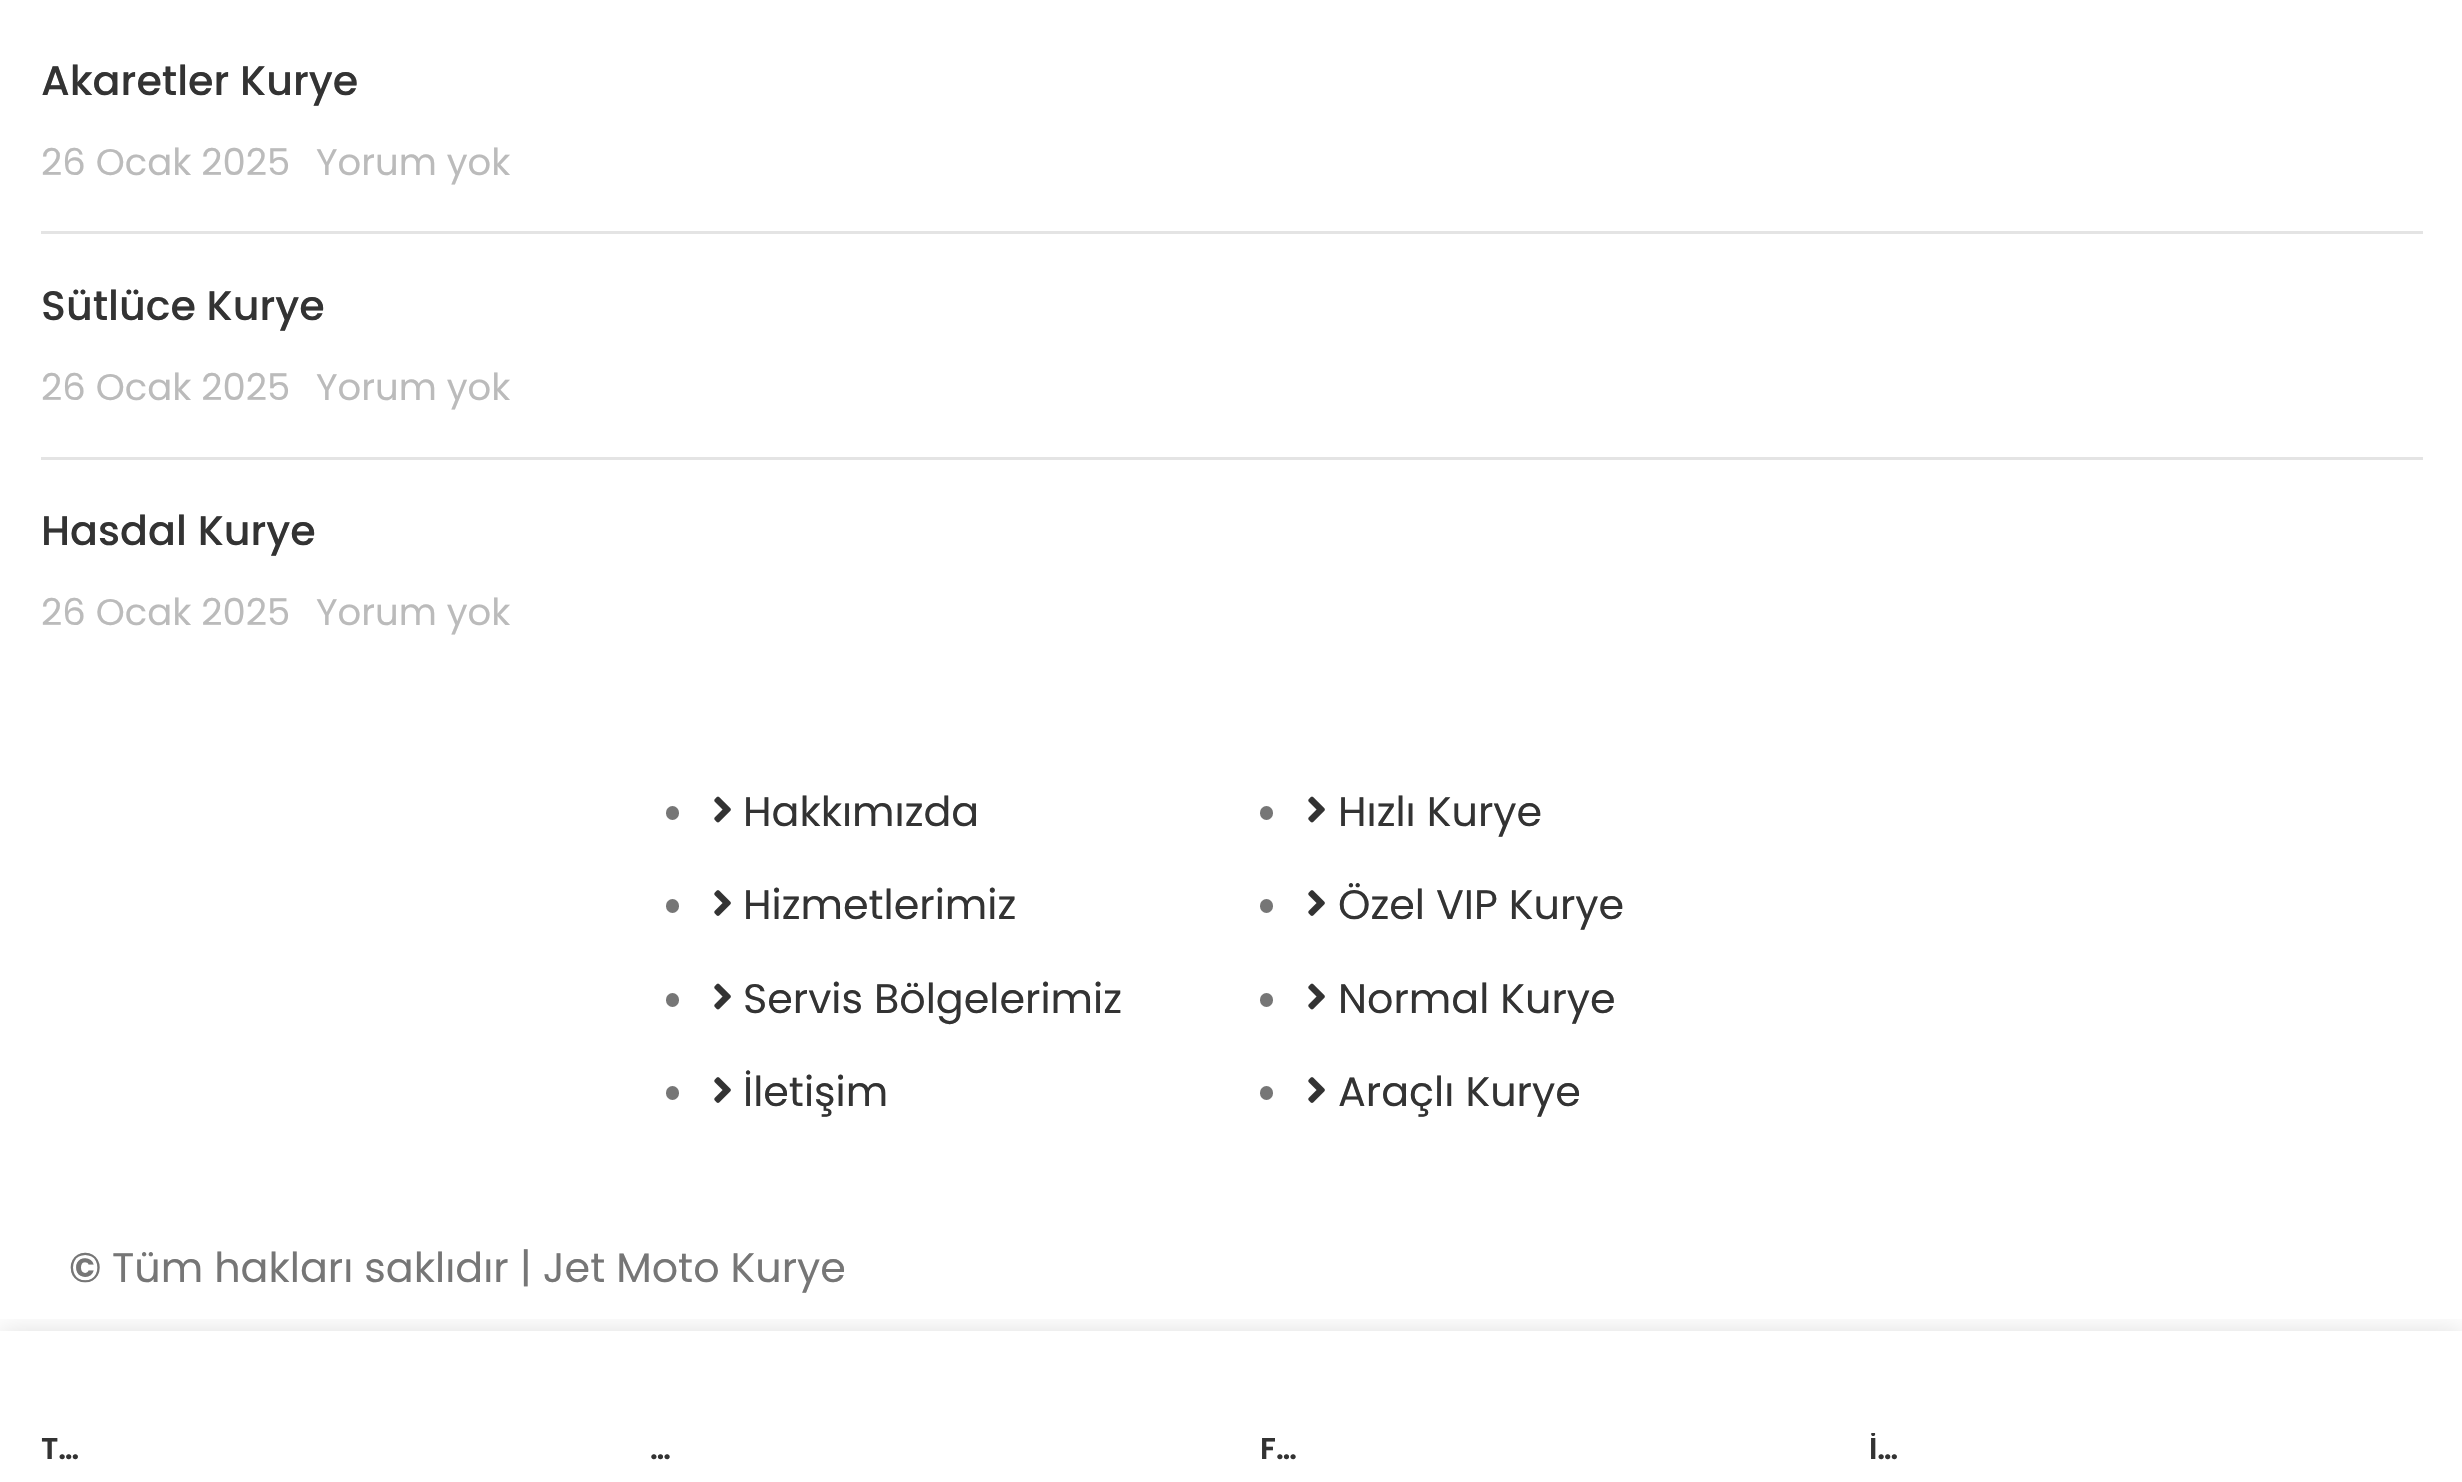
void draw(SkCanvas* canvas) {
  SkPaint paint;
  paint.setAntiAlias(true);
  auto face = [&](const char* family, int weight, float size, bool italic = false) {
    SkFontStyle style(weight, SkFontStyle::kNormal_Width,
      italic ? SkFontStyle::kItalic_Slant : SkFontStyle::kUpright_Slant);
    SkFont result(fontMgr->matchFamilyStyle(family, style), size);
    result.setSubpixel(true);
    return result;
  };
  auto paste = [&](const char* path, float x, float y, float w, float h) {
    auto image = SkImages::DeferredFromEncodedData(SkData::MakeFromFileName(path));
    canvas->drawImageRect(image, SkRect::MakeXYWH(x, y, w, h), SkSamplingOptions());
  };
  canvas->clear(0xffffffff);
  paint.setColor(0xffe4e4e4);
  canvas->drawRect(SkRect::MakeXYWH(41, 231, 2382, 3), paint);
  canvas->drawRect(SkRect::MakeXYWH(41, 457, 2382, 3), paint);
  paint.setColor(0xff767676);
  canvas->drawRoundRect(SkRect::MakeXYWH(666, 806, 13, 14), 6.5f, 6.5f, paint);
  paste("img/1.png", 714, 796, 17, 27);
  canvas->drawRoundRect(SkRect::MakeXYWH(666, 899, 13, 14), 6.5f, 6.5f, paint);
  paste("img/2.png", 714, 890, 17, 26);
  canvas->drawRoundRect(SkRect::MakeXYWH(666, 993, 13, 14), 6.5f, 6.5f, paint);
  paste("img/1.png", 714, 983, 17, 27);
  canvas->drawRoundRect(SkRect::MakeXYWH(666, 1086, 13, 14), 6.5f, 6.5f, paint);
  paste("img/2.png", 714, 1077, 17, 26);
  canvas->drawRoundRect(SkRect::MakeXYWH(1260, 806, 13, 14), 6.5f, 6.5f, paint);
  paste("img/1.png", 1308, 796, 17, 27);
  canvas->drawRoundRect(SkRect::MakeXYWH(1260, 899, 13, 14), 6.5f, 6.5f, paint);
  paste("img/2.png", 1308, 890, 17, 26);
  canvas->drawRoundRect(SkRect::MakeXYWH(1260, 993, 13, 14), 6.5f, 6.5f, paint);
  paste("img/1.png", 1308, 983, 17, 27);
  canvas->drawRoundRect(SkRect::MakeXYWH(1260, 1086, 13, 14), 6.5f, 6.5f, paint);
  paste("img/2.png", 1308, 1077, 17, 26);
  canvas->save();
  canvas->clipRect(SkRect::MakeXYWH(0, 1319, 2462, 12));
  paint.setColor(0x1f000000);
  paint.setMaskFilter(SkMaskFilter::MakeBlur(kNormal_SkBlurStyle, 12.5f));
  canvas->drawRect(SkRect::MakeXYWH(0, 1331, 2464, 151), paint);
  paint.setMaskFilter(nullptr);
  canvas->restore();
  auto f0 = face("Poppins", 500, 41.25f);
  paint.setColor(0xff333333);
  canvas->drawString("Akaretler Kurye", 41, 95, f0, paint);
  auto f1 = face("Poppins", 400, 37);
  paint.setColor(0xffbbbbbb);
  canvas->drawString("26 Ocak 2025", 41, 175, f1, paint);
  canvas->drawString("Yorum yok", 316, 175, f1, paint);
  paint.setColor(0xff333333);
  canvas->drawString("Sütlüce Kurye", 41, 320, f0, paint);
  paint.setColor(0xffbbbbbb);
  canvas->drawString("26 Ocak 2025", 41, 400, f1, paint);
  canvas->drawString("Yorum yok", 316, 400, f1, paint);
  paint.setColor(0xff333333);
  canvas->drawString("Hasdal Kurye", 41, 545, f0, paint);
  paint.setColor(0xffbbbbbb);
  canvas->drawString("26 Ocak 2025", 41, 625, f1, paint);
  canvas->drawString("Yorum yok", 316, 625, f1, paint);
  auto f2 = face("Poppins", 400, 41.25f);
  paint.setColor(0xff333333);
  {
    const struct { const char* s; float x, y; } items[] = {
      {"Hakkımızda", 743, 826},
      {"Hizmetlerimiz", 743, 919},
      {"Servis Bölgelerimiz", 743, 1013},
      {"İletişim", 743, 1106},
      {"Hızlı Kurye", 1338, 826},
      {"Özel VIP Kurye", 1338, 919},
      {"Normal Kurye", 1338, 1013},
      {"Araçlı Kurye", 1338, 1106},
    };
    for (auto [s, x, y] : items) {
      canvas->drawString(s, x, y, f2, paint);
    }
  }
  auto f3 = face("Poppins", 600, 41.25f);
  paint.setColor(0xff767676);
  canvas->drawString("©", 69, 1282, f3, paint);
  canvas->drawString("Tüm hakları saklıdır | Jet Moto Kurye", 112, 1282, f2, paint);
  auto f4 = face("Poppins", 600, 30);
  paint.setColor(0xff333333);
  {
    const struct { const char* s; float x, y; } items[] = {
      {"T…", 41, 1459},
      {"…", 650, 1459},
      {"F…", 1260, 1459},
    };
    for (auto [s, x, y] : items) {
      canvas->drawString(s, x, y, f4, paint);
    }
  }
  canvas->save();
  canvas->clipRect(SkRect::MakeXYWH(1870, 1433, 41, 36));
  canvas->drawString("İ…", 1869, 1459, f4, paint);
  canvas->restore();
}
